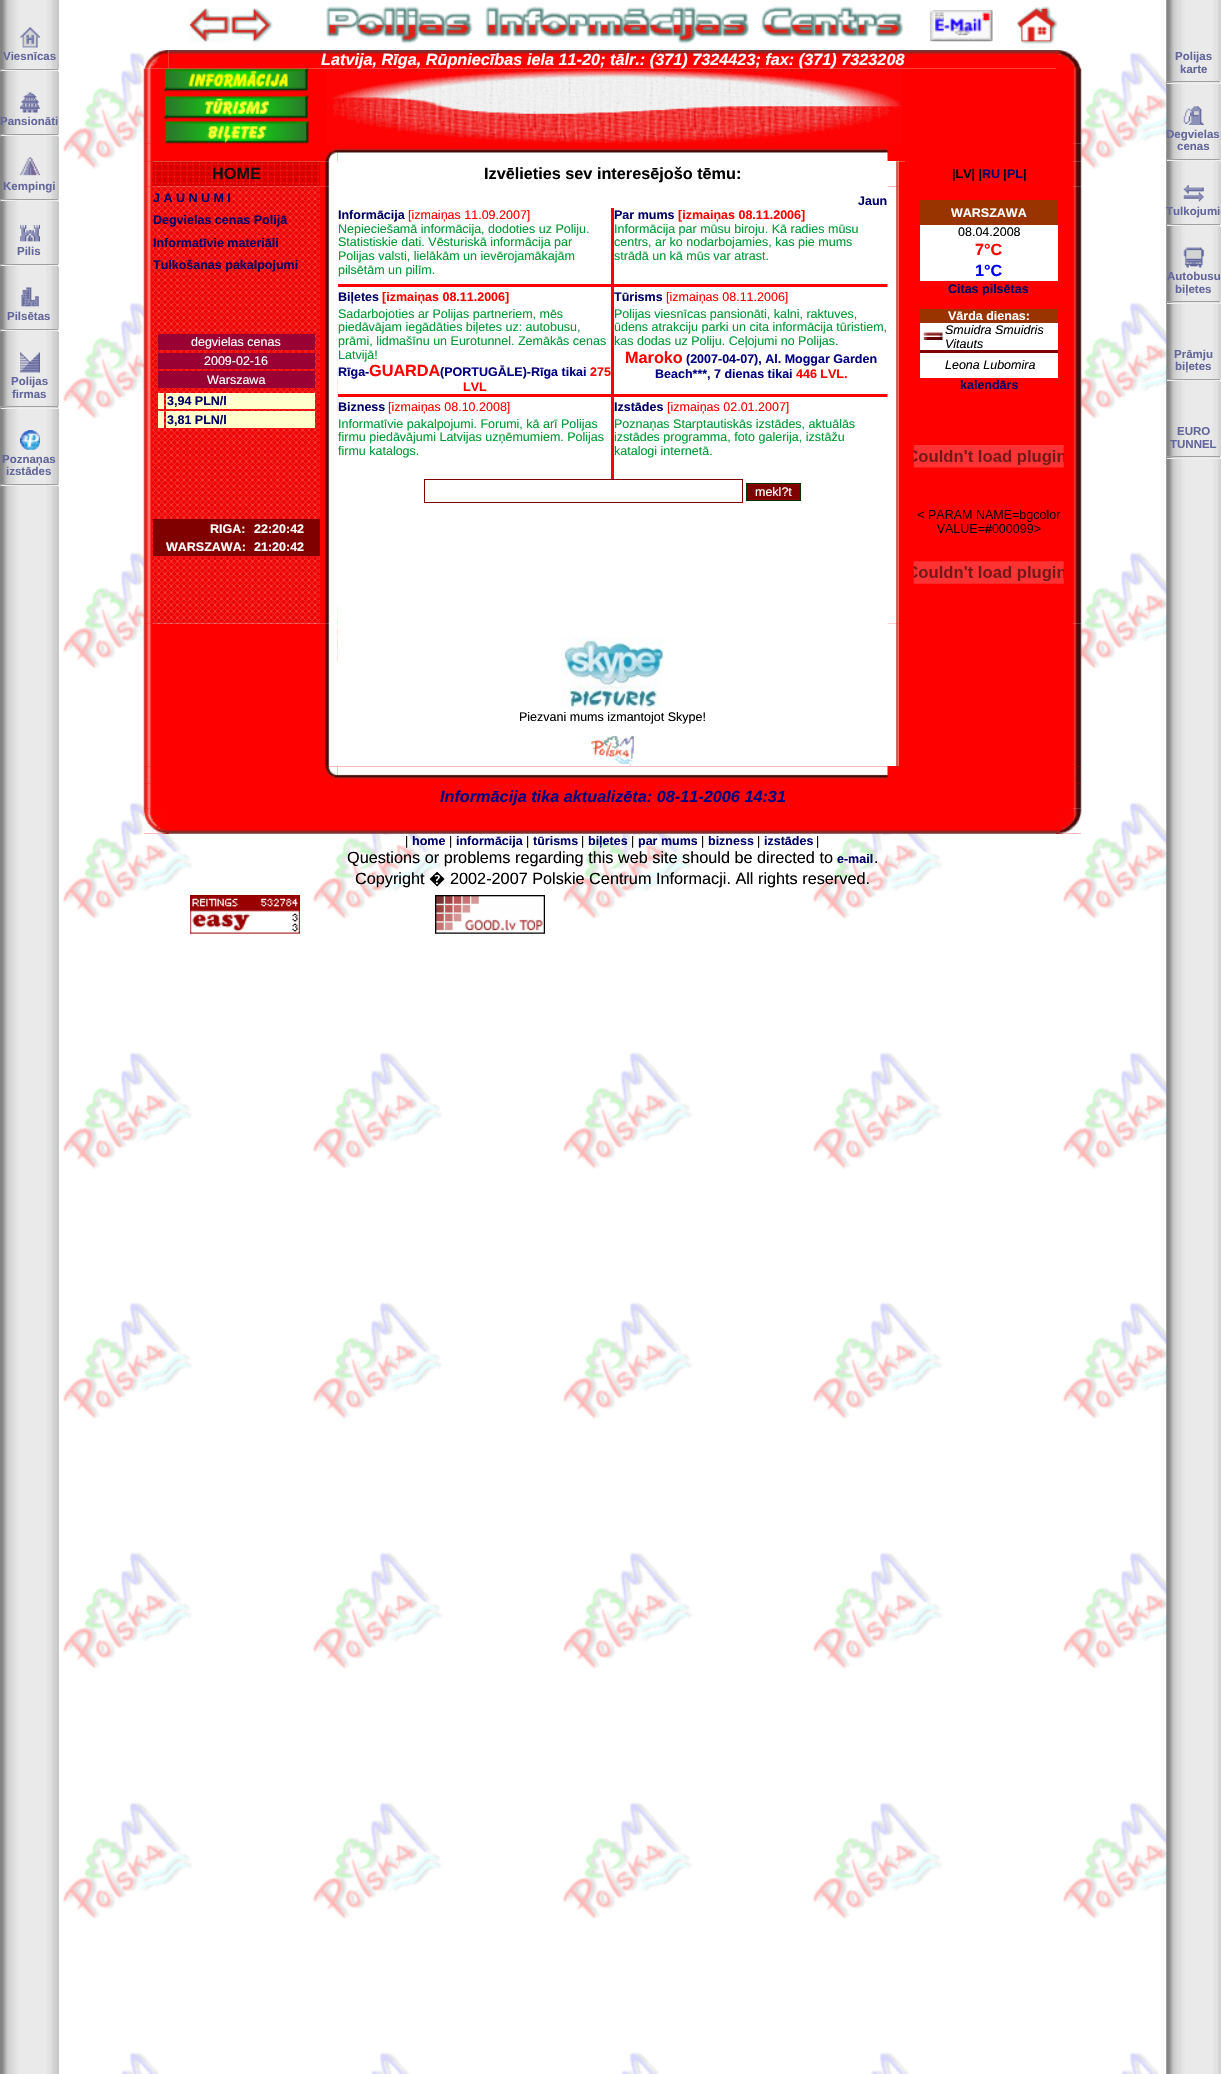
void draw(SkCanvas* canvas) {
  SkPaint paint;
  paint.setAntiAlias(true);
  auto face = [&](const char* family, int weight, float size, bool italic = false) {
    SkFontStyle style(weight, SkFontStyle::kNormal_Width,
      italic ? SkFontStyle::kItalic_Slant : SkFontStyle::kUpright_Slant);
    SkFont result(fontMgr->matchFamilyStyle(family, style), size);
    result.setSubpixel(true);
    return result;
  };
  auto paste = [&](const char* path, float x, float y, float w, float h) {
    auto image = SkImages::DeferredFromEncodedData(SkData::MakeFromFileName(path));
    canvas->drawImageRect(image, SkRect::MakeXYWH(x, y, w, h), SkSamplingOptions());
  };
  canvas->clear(0xffffffff);
  paste("img/1.png", 63, 52, 1104, 2022);
  paste("img/2.png", 0, 0, 59, 2074);
  paste("img/3.png", 20, 27, 20, 21);
  {
    const struct { float x, y, w, h; SkColor color; } items[] = {
      {0, 69, 59, 1, 0xff9f9f9f},
      {58, 69, 1, 3, 0xffeeeeee},
      {0, 70, 59, 1, 0xffeeeeee},
      {0, 69, 1, 3, 0xff9f9f9f},
    };
    for (auto [x, y, w, h, color] : items) {
      paint.setColor(color);
      canvas->drawRect(SkRect::MakeXYWH(x, y, w, h), paint);
    }
  }
  paste("img/4.png", 20, 92, 20, 21);
  {
    const struct { float x, y, w, h; SkColor color; } items[] = {
      {0, 134, 59, 1, 0xff9f9f9f},
      {58, 134, 1, 3, 0xffeeeeee},
      {0, 135, 59, 1, 0xffeeeeee},
      {0, 134, 1, 3, 0xff9f9f9f},
    };
    for (auto [x, y, w, h, color] : items) {
      paint.setColor(color);
      canvas->drawRect(SkRect::MakeXYWH(x, y, w, h), paint);
    }
  }
  paste("img/5.png", 20, 157, 20, 19);
  {
    const struct { float x, y, w, h; SkColor color; } items[] = {
      {0, 199, 59, 1, 0xff9f9f9f},
      {58, 199, 1, 3, 0xffeeeeee},
      {0, 200, 59, 1, 0xffeeeeee},
      {0, 199, 1, 3, 0xff9f9f9f},
    };
    for (auto [x, y, w, h, color] : items) {
      paint.setColor(color);
      canvas->drawRect(SkRect::MakeXYWH(x, y, w, h), paint);
    }
  }
  paste("img/6.png", 20, 224, 20, 18);
  {
    const struct { float x, y, w, h; SkColor color; } items[] = {
      {0, 264, 59, 1, 0xff9f9f9f},
      {58, 264, 1, 3, 0xffeeeeee},
      {0, 265, 59, 1, 0xffeeeeee},
      {0, 264, 1, 3, 0xff9f9f9f},
    };
    for (auto [x, y, w, h, color] : items) {
      paint.setColor(color);
      canvas->drawRect(SkRect::MakeXYWH(x, y, w, h), paint);
    }
  }
  paste("img/7.png", 21, 287, 18, 20);
  {
    const struct { float x, y, w, h; SkColor color; } items[] = {
      {0, 329, 59, 1, 0xff9f9f9f},
      {58, 329, 1, 3, 0xffeeeeee},
      {0, 330, 59, 1, 0xffeeeeee},
      {0, 329, 1, 3, 0xff9f9f9f},
    };
    for (auto [x, y, w, h, color] : items) {
      paint.setColor(color);
      canvas->drawRect(SkRect::MakeXYWH(x, y, w, h), paint);
    }
  }
  paste("img/8.png", 20, 352, 20, 21);
  {
    const struct { float x, y, w, h; SkColor color; } items[] = {
      {0, 406, 59, 1, 0xff9f9f9f},
      {58, 406, 1, 3, 0xffeeeeee},
      {0, 408, 59, 1, 0xffeeeeee},
      {0, 406, 1, 3, 0xff9f9f9f},
    };
    for (auto [x, y, w, h, color] : items) {
      paint.setColor(color);
      canvas->drawRect(SkRect::MakeXYWH(x, y, w, h), paint);
    }
  }
  paste("img/9.png", 20, 430, 20, 20);
  {
    const struct { float x, y, w, h; SkColor color; } items[] = {
      {0, 484, 59, 1, 0xff9f9f9f},
      {58, 484, 1, 3, 0xffeeeeee},
      {0, 485, 59, 1, 0xffeeeeee},
      {0, 484, 1, 3, 0xff9f9f9f},
    };
    for (auto [x, y, w, h, color] : items) {
      paint.setColor(color);
      canvas->drawRect(SkRect::MakeXYWH(x, y, w, h), paint);
    }
  }
  paste("img/10.png", 189, 8, 42, 34);
  paste("img/11.png", 231, 7, 42, 36);
  paste("img/12.png", 326, 6, 578, 38);
  paste("img/13.png", 930, 10, 63, 32);
  paste("img/14.png", 1017, 6, 41, 38);
  paste("img/15.png", 143, 50, 26, 19);
  paste("img/16.png", 168, 50, 888, 19);
  paint.setColor(0xffff0000);
  canvas->drawRect(SkRect::MakeXYWH(1056, 50, 25, 19), paint);
  paste("img/17.png", 1056, 50, 26, 19);
  canvas->drawRect(SkRect::MakeXYWH(144, 69, 929, 75), paint);
  paste("img/18.png", 143, 68, 9, 76);
  paste("img/19.png", 163, 68, 146, 76);
  paste("img/20.png", 327, 69, 575, 75);
  paste("img/21.png", 1073, 68, 9, 76);
  canvas->drawRect(SkRect::MakeXYWH(152, 144, 921, 17), paint);
  paste("img/22.png", 143, 143, 10, 19);
  paste("img/23.png", 320, 148, 18, 14);
  paste("img/24.png", 337, 148, 551, 14);
  paste("img/25.png", 1072, 143, 10, 19);
  canvas->drawRect(SkRect::MakeXYWH(144, 161, 9, 25), paint);
  paste("img/26.png", 143, 161, 10, 26);
  paste("img/27.png", 152, 161, 168, 26);
  paste("img/28.png", 320, 161, 18, 26);
  paint.setColor(0xffffffff);
  canvas->drawRect(SkRect::MakeXYWH(338, 161, 512, 8), paint);
  paste("img/29.png", 888, 161, 17, 25);
  paint.setColor(0xffff0000);
  canvas->drawRect(SkRect::MakeXYWH(905, 161, 168, 25), paint);
  paste("img/30.png", 1072, 161, 10, 26);
  canvas->drawRect(SkRect::MakeXYWH(144, 186, 9, 438), paint);
  paste("img/31.png", 143, 186, 9, 438);
  paste("img/32.png", 152, 186, 168, 438);
  {
    const struct { float x, y, w, h; SkColor color; } items[] = {
      {158, 334, 157, 16, 0xff990033},
      {158, 353, 157, 16, 0xff990033},
      {158, 371, 157, 17, 0xff990033},
      {158, 393, 6, 16, 0xffffffcc},
      {166, 393, 149, 16, 0xffffffcc},
      {158, 411, 6, 17, 0xffffffcc},
      {166, 411, 149, 17, 0xffffffcc},
      {153, 519, 167, 37, 0xff800000},
    };
    for (auto [x, y, w, h, color] : items) {
      paint.setColor(color);
      canvas->drawRect(SkRect::MakeXYWH(x, y, w, h), paint);
    }
  }
  paste("img/33.png", 320, 186, 18, 438);
  {
    const struct { float x, y, w, h; SkColor color; } items[] = {
      {338, 302, 550, 367, 0xffffffff},
      {611, 208, 3, 271, 0xffff0000},
      {338, 284, 273, 3, 0xffff0000},
      {614, 284, 274, 3, 0xffff0000},
      {338, 394, 273, 3, 0xffff0000},
      {614, 394, 274, 3, 0xffff0000},
    };
    for (auto [x, y, w, h, color] : items) {
      paint.setColor(color);
      canvas->drawRect(SkRect::MakeXYWH(x, y, w, h), paint);
    }
  }
  paint.setStroke(true);
  paint.setStrokeWidth(1);
  paint.setColor(0xff800000);
  canvas->drawRect(SkRect::MakeXYWH(424.5f, 479.5f, 318, 23), paint);
  paint.setStroke(false);
  canvas->drawRect(SkRect::MakeXYWH(746.5f, 483.5f, 54, 17), paint);
  paint.setStroke(true);
  paint.setColor(0xff003300);
  canvas->drawRect(SkRect::MakeXYWH(746.5f, 483.5f, 54, 17), paint);
  paint.setStroke(false);
  paint.setColor(0xffff0000);
  canvas->drawRect(SkRect::MakeXYWH(888, 186, 185, 438), paint);
  paste("img/34.png", 887, 186, 12, 438);
  paste("img/35.png", 1073, 186, 9, 438);
  {
    const struct { float x, y, w, h; SkColor color; } items[] = {
      {920, 200, 138, 25, 0xff993300},
      {920, 225, 138, 56, 0xffffffff},
      {920, 309, 138, 14, 0xff993300},
      {920, 323, 138, 27, 0xffffffff},
    };
    for (auto [x, y, w, h, color] : items) {
      paint.setColor(color);
      canvas->drawRect(SkRect::MakeXYWH(x, y, w, h), paint);
    }
  }
  paste("img/36.png", 923, 332, 20, 8);
  paint.setColor(0xff800000);
  canvas->drawRect(SkRect::MakeXYWH(920, 350, 138, 3), paint);
  paint.setColor(0xffffffff);
  canvas->drawRect(SkRect::MakeXYWH(920, 353, 138, 25), paint);
  paste("img/37.png", 913, 445, 151, 23);
  paste("img/38.png", 917, 510, 144, 23);
  paste("img/39.png", 913, 561, 151, 23);
  paint.setColor(0xffff0000);
  canvas->drawRect(SkRect::MakeXYWH(152, 624, 168, 142), paint);
  paste("img/40.png", 143, 623, 10, 144);
  paste("img/41.png", 320, 623, 18, 143);
  paste("img/42.png", 561, 637, 103, 73);
  canvas->drawRect(SkRect::MakeXYWH(905, 624, 168, 142), paint);
  paste("img/45.png", 1072, 623, 10, 144);
  canvas->drawRect(SkRect::MakeXYWH(144, 766, 937, 18), paint);
  paste("img/47.png", 324, 766, 14, 13);
  paste("img/48.png", 337, 766, 551, 13);
  paste("img/43.png", 591, 736, 43, 31);
  paste("img/44.png", 888, 623, 17, 143);
  paste("img/46.png", 143, 766, 9, 18);
  paste("img/49.png", 1073, 766, 9, 18);
  canvas->drawRect(SkRect::MakeXYWH(144, 784, 929, 25), paint);
  paste("img/50.png", 143, 783, 9, 26);
  paste("img/51.png", 1073, 783, 9, 26);
  canvas->drawRect(SkRect::MakeXYWH(144, 809, 25, 25), paint);
  paste("img/52.png", 143, 808, 26, 26);
  paste("img/53.png", 168, 809, 888, 25);
  canvas->drawRect(SkRect::MakeXYWH(1056, 809, 25, 25), paint);
  paste("img/54.png", 1056, 808, 26, 26);
  paste("img/55.png", 190, 895, 110, 39);
  paste("img/56.png", 435, 895, 110, 39);
  paste("img/57.png", 1166, 0, 55, 2074);
  {
    const struct { float x, y, w, h; SkColor color; } items[] = {
      {1166, 81, 55, 1, 0xff9f9f9f},
      {1220, 81, 1, 3, 0xffeeeeee},
      {1166, 83, 55, 1, 0xffeeeeee},
      {1166, 81, 1, 3, 0xff9f9f9f},
    };
    for (auto [x, y, w, h, color] : items) {
      paint.setColor(color);
      canvas->drawRect(SkRect::MakeXYWH(x, y, w, h), paint);
    }
  }
  paste("img/58.png", 1183, 106, 21, 19);
  {
    const struct { float x, y, w, h; SkColor color; } items[] = {
      {1166, 159, 55, 1, 0xff9f9f9f},
      {1220, 159, 1, 3, 0xffeeeeee},
      {1166, 160, 55, 1, 0xffeeeeee},
      {1166, 159, 1, 3, 0xff9f9f9f},
    };
    for (auto [x, y, w, h, color] : items) {
      paint.setColor(color);
      canvas->drawRect(SkRect::MakeXYWH(x, y, w, h), paint);
    }
  }
  paste("img/59.png", 1183, 184, 21, 18);
  {
    const struct { float x, y, w, h; SkColor color; } items[] = {
      {1166, 224, 55, 1, 0xff9f9f9f},
      {1220, 224, 1, 3, 0xffeeeeee},
      {1166, 225, 55, 1, 0xffeeeeee},
      {1166, 224, 1, 3, 0xff9f9f9f},
    };
    for (auto [x, y, w, h, color] : items) {
      paint.setColor(color);
      canvas->drawRect(SkRect::MakeXYWH(x, y, w, h), paint);
    }
  }
  paste("img/60.png", 1183, 247, 21, 21);
  {
    const struct { float x, y, w, h; SkColor color; } items[] = {
      {1166, 301, 55, 1, 0xff9f9f9f},
      {1220, 301, 1, 3, 0xffeeeeee},
      {1166, 303, 55, 1, 0xffeeeeee},
      {1166, 301, 1, 3, 0xff9f9f9f},
      {1166, 379, 55, 1, 0xff9f9f9f},
      {1220, 379, 1, 3, 0xffeeeeee},
      {1166, 380, 55, 1, 0xffeeeeee},
      {1166, 379, 1, 3, 0xff9f9f9f},
      {1166, 456, 55, 1, 0xff9f9f9f},
      {1220, 456, 1, 3, 0xffeeeeee},
      {1166, 458, 55, 1, 0xffeeeeee},
      {1166, 456, 1, 3, 0xff9f9f9f},
    };
    for (auto [x, y, w, h, color] : items) {
      paint.setColor(color);
      canvas->drawRect(SkRect::MakeXYWH(x, y, w, h), paint);
    }
  }
  auto f0 = face("Liberation Sans", 700, 11.5f);
  paint.setColor(0xff62669a);
  {
    const struct { const char* s; float x, y; } items[] = {
      {"Viesnīcas", 3, 60},
      {"Pansionāti", 0, 125},
      {"Kempingi", 3, 190},
      {"Pilis", 17, 255},
      {"Pilsētas", 7, 320},
      {"Polijas", 11, 385},
      {"firmas", 12, 398},
      {"Poznaņas", 2, 463},
      {"izstādes", 6, 475},
    };
    for (auto [s, x, y] : items) {
      canvas->drawString(s, x, y, f0, paint);
    }
  }
  auto f1 = face("Liberation Sans", 700, 16.25f, true);
  paint.setColor(0xffffffff);
  canvas->drawString("Latvija, Rīga, Rūpniecības iela 11-20; tālr.: (371) 7324423; fax: (371) 7323208", 321, 65, f1, paint);
  auto f2 = face("Liberation Sans", 700, 16.25f);
  paint.setColor(0xff111111);
  canvas->drawString("HOME", 212, 179, f2, paint);
  paint.setColor(0xff000000);
  canvas->drawString("Izvēlieties sev interesējošo tēmu:", 484, 179, f2, paint);
  auto f3 = face("Liberation Sans", 700, 12.5f);
  canvas->drawString("|LV| |", 952, 178, f3, paint);
  paint.setColor(0xff000066);
  canvas->drawString("RU", 982, 178, f3, paint);
  paint.setColor(0xff000000);
  canvas->drawString("|", 1003, 178, f3, paint);
  paint.setColor(0xff000066);
  canvas->drawString("PL", 1007, 178, f3, paint);
  paint.setColor(0xff000000);
  canvas->drawString("|", 1023, 178, f3, paint);
  paint.setColor(0xff000066);
  {
    const struct { const char* s; float x, y; } items[] = {
      {"J A U N U M I", 153, 202},
      {"Degvielas cenas Polijā", 153, 224},
      {"Informatīvie materiāli", 153, 247},
      {"Tulkošanas pakalpojumi", 153, 269},
    };
    for (auto [s, x, y] : items) {
      canvas->drawString(s, x, y, f3, paint);
    }
  }
  auto f4 = face("Liberation Sans", 400, 12.5f);
  paint.setColor(0xffffffff);
  {
    const struct { const char* s; float x, y; } items[] = {
      {"degvielas cenas", 191, 346},
      {"2009-02-16", 204, 365},
      {"Warszawa", 207, 384},
    };
    for (auto [s, x, y] : items) {
      canvas->drawString(s, x, y, f4, paint);
    }
  }
  paint.setColor(0xff000066);
  canvas->drawString("3,94 PLN/l", 167, 405, f3, paint);
  canvas->drawString("3,81 PLN/l", 167, 424, f3, paint);
  paint.setColor(0xffffffff);
  {
    const struct { const char* s; float x, y; } items[] = {
      {"RIGA:", 210, 533},
      {"22:20:42", 254, 533},
      {"WARSZAWA:", 166, 551},
      {"21:20:42", 254, 551},
    };
    for (auto [s, x, y] : items) {
      canvas->drawString(s, x, y, f3, paint);
    }
  }
  paint.setColor(0xff000066);
  canvas->drawString("Jaun", 858, 205, f3, paint);
  canvas->drawString("Informācija", 338, 219, f3, paint);
  paint.setColor(0xffff0000);
  canvas->drawString("[izmaiņas 11.09.2007]", 408, 219, f4, paint);
  paint.setColor(0xff000066);
  canvas->drawString("Par mums", 614, 219, f3, paint);
  paint.setColor(0xffff0000);
  canvas->drawString("[izmaiņas 08.11.2006]", 678, 219, f3, paint);
  paint.setColor(0xff009933);
  {
    const struct { const char* s; float x, y; } items[] = {
      {"Nepieciešamā informācija, dodoties uz Poliju.", 338, 233},
      {"Statistiskie dati. Vēsturiskā informācija par", 338, 246},
      {"Polijas valsti, lielākām un ievērojamākajām", 338, 260},
      {"pilsētām un pilīm.", 338, 274},
      {"Informācija par mūsu biroju. Kā radies mūsu", 614, 233},
      {"centrs, ar ko nodarbojamies, kas pie mums", 614, 246},
      {"strādā un kā mūs var atrast.", 614, 260},
    };
    for (auto [s, x, y] : items) {
      canvas->drawString(s, x, y, f4, paint);
    }
  }
  paint.setColor(0xff000066);
  canvas->drawString("Biļetes", 338, 301, f3, paint);
  paint.setColor(0xffff0000);
  canvas->drawString("[izmaiņas 08.11.2006]", 382, 301, f3, paint);
  paint.setColor(0xff000066);
  canvas->drawString("Tūrisms", 614, 301, f3, paint);
  paint.setColor(0xffff0000);
  canvas->drawString("[izmaiņas 08.11.2006]", 666, 301, f4, paint);
  paint.setColor(0xff009933);
  {
    const struct { const char* s; float x, y; } items[] = {
      {"Sadarbojoties ar Polijas partneriem, mēs", 338, 318},
      {"piedāvājam iegādāties biļetes uz: autobusu,", 338, 331},
      {"prāmi, lidmašīnu un Eurotunnel. Zemākās cenas", 338, 345},
      {"Latvijā!", 338, 359},
    };
    for (auto [s, x, y] : items) {
      canvas->drawString(s, x, y, f4, paint);
    }
  }
  paint.setColor(0xff000080);
  canvas->drawString("Rīga-", 338, 376, f3, paint);
  paint.setColor(0xffff0000);
  canvas->drawString("GUARDA", 369, 376, f2, paint);
  paint.setColor(0xff000080);
  canvas->drawString("(PORTUGĀLE)-Rīga tikai", 440, 376, f3, paint);
  paint.setColor(0xffff0000);
  canvas->drawString("275", 590, 376, f3, paint);
  canvas->drawString("LVL", 463, 391, f3, paint);
  paint.setColor(0xff009933);
  {
    const struct { const char* s; float x, y; } items[] = {
      {"Polijas viesnīcas pansionāti, kalni, raktuves,", 614, 318},
      {"ūdens atrakciju parki un cita informācija tūristiem,", 614, 331},
      {"kas dodas uz Poliju. Ceļojumi no Polijas.", 614, 345},
    };
    for (auto [s, x, y] : items) {
      canvas->drawString(s, x, y, f4, paint);
    }
  }
  paint.setColor(0xffff0000);
  canvas->drawString("Maroko", 625, 363, f2, paint);
  paint.setColor(0xff000080);
  canvas->drawString("(2007-04-07), Al. Moggar Garden", 686, 363, f3, paint);
  canvas->drawString("Beach***, 7 dienas tikai", 655, 378, f3, paint);
  paint.setColor(0xffff0000);
  canvas->drawString("446 LVL.", 796, 378, f3, paint);
  paint.setColor(0xff000066);
  canvas->drawString("Bizness", 338, 411, f3, paint);
  paint.setColor(0xffff0000);
  canvas->drawString("[izmaiņas 08.10.2008]", 388, 411, f4, paint);
  paint.setColor(0xff000066);
  canvas->drawString("Izstādes", 614, 411, f3, paint);
  paint.setColor(0xffff0000);
  canvas->drawString("[izmaiņas 02.01.2007]", 667, 411, f4, paint);
  paint.setColor(0xff009933);
  {
    const struct { const char* s; float x, y; } items[] = {
      {"Informatīvie pakalpojumi. Forumi, kā arī Polijas", 338, 428},
      {"firmu piedāvājumi Latvijas uzņēmumiem. Polijas", 338, 441},
      {"firmu katalogs.", 338, 455},
      {"Poznaņas Starptautiskās izstādes, aktuālās", 614, 428},
      {"izstādes programma, foto galerija, izstāžu", 614, 441},
      {"katalogi internetā.", 614, 455},
    };
    for (auto [s, x, y] : items) {
      canvas->drawString(s, x, y, f4, paint);
    }
  }
  paint.setColor(0xffffffff);
  canvas->drawString("mekl?t", 755, 496, f4, paint);
  canvas->drawString("WARSZAWA", 951, 217, f3, paint);
  paint.setColor(0xff000000);
  canvas->drawString("08.04.2008", 958, 236, f4, paint);
  paint.setColor(0xffff0000);
  canvas->drawString("7°C", 975, 255, f2, paint);
  paint.setColor(0xff0000ff);
  canvas->drawString("1°C", 975, 276, f2, paint);
  paint.setColor(0xff000066);
  canvas->drawString("Citas pilsētas", 948, 293, f3, paint);
  paint.setColor(0xffffffff);
  canvas->drawString("Vārda dienas:", 948, 320, f3, paint);
  auto f5 = face("Liberation Sans", 400, 12.5f, true);
  paint.setColor(0xff000000);
  {
    const struct { const char* s; float x, y; } items[] = {
      {"Smuidra Smuidris", 945, 334},
      {"Vitauts", 945, 348},
      {"Leona Lubomira", 945, 369},
    };
    for (auto [s, x, y] : items) {
      canvas->drawString(s, x, y, f5, paint);
    }
  }
  paint.setColor(0xff000066);
  canvas->drawString("kalendārs", 960, 389, f3, paint);
  paint.setColor(0xff000000);
  {
    const struct { const char* s; float x, y; } items[] = {
      {"l", 1046, 519},
      {"#", 985, 533},
      {"Piezvani mums izmantojot Skype!", 519, 721},
    };
    for (auto [s, x, y] : items) {
      canvas->drawString(s, x, y, f4, paint);
    }
  }
  paint.setColor(0xff000080);
  canvas->drawString("Informācija tika aktualizēta: 08-11-2006 14:31", 440, 802, f1, paint);
  paint.setColor(0xff000000);
  canvas->drawString("|", 405, 845, f4, paint);
  paint.setColor(0xff000066);
  canvas->drawString("home", 412, 845, f3, paint);
  paint.setColor(0xff000000);
  canvas->drawString("|", 449, 845, f4, paint);
  paint.setColor(0xff000066);
  canvas->drawString("informācija", 456, 845, f3, paint);
  paint.setColor(0xff000000);
  canvas->drawString("|", 526, 845, f4, paint);
  paint.setColor(0xff000066);
  canvas->drawString("tūrisms", 533, 845, f3, paint);
  paint.setColor(0xff000000);
  canvas->drawString("|", 581, 845, f4, paint);
  paint.setColor(0xff000066);
  canvas->drawString("biļetes", 588, 845, f3, paint);
  paint.setColor(0xff000000);
  canvas->drawString("|", 631, 845, f4, paint);
  paint.setColor(0xff000066);
  canvas->drawString("par mums", 638, 845, f3, paint);
  paint.setColor(0xff000000);
  canvas->drawString("|", 701, 845, f4, paint);
  paint.setColor(0xff000066);
  canvas->drawString("bizness", 708, 845, f3, paint);
  paint.setColor(0xff000000);
  canvas->drawString("|", 757, 845, f4, paint);
  paint.setColor(0xff000066);
  canvas->drawString("izstādes", 764, 845, f3, paint);
  paint.setColor(0xff000000);
  canvas->drawString("|", 816, 845, f4, paint);
  auto f6 = face("Liberation Sans", 400, 16.25f);
  canvas->drawString("Questions or problems regarding this web site should be directed to", 347, 863, f6, paint);
  paint.setColor(0xff000066);
  canvas->drawString("e-mail", 837, 863, f3, paint);
  paint.setColor(0xff000000);
  canvas->drawString(".", 874, 863, f6, paint);
  canvas->drawString("Copyright", 355, 884, f6, paint);
  auto f7 = face("Noto Sans", 400, 16.25f);
  canvas->drawString("�", 429, 884, f7, paint);
  canvas->drawString("2002-2007 Polskie Centrum Informacji. All rights reserved.", 450, 884, f6, paint);
  paint.setColor(0xff62669a);
  {
    const struct { const char* s; float x, y; } items[] = {
      {"Polijas", 1175, 60},
      {"karte", 1180, 73},
      {"Degvielas", 1166, 138},
      {"cenas", 1177, 150},
      {"Tulkojumi", 1166, 215},
      {"Autobusu", 1167, 280},
      {"biļetes", 1175, 293},
      {"Prāmju", 1174, 358},
      {"biļetes", 1175, 370},
      {"EURO", 1177, 435},
      {"TUNNEL", 1170, 448},
    };
    for (auto [s, x, y] : items) {
      canvas->drawString(s, x, y, f0, paint);
    }
  }
}
